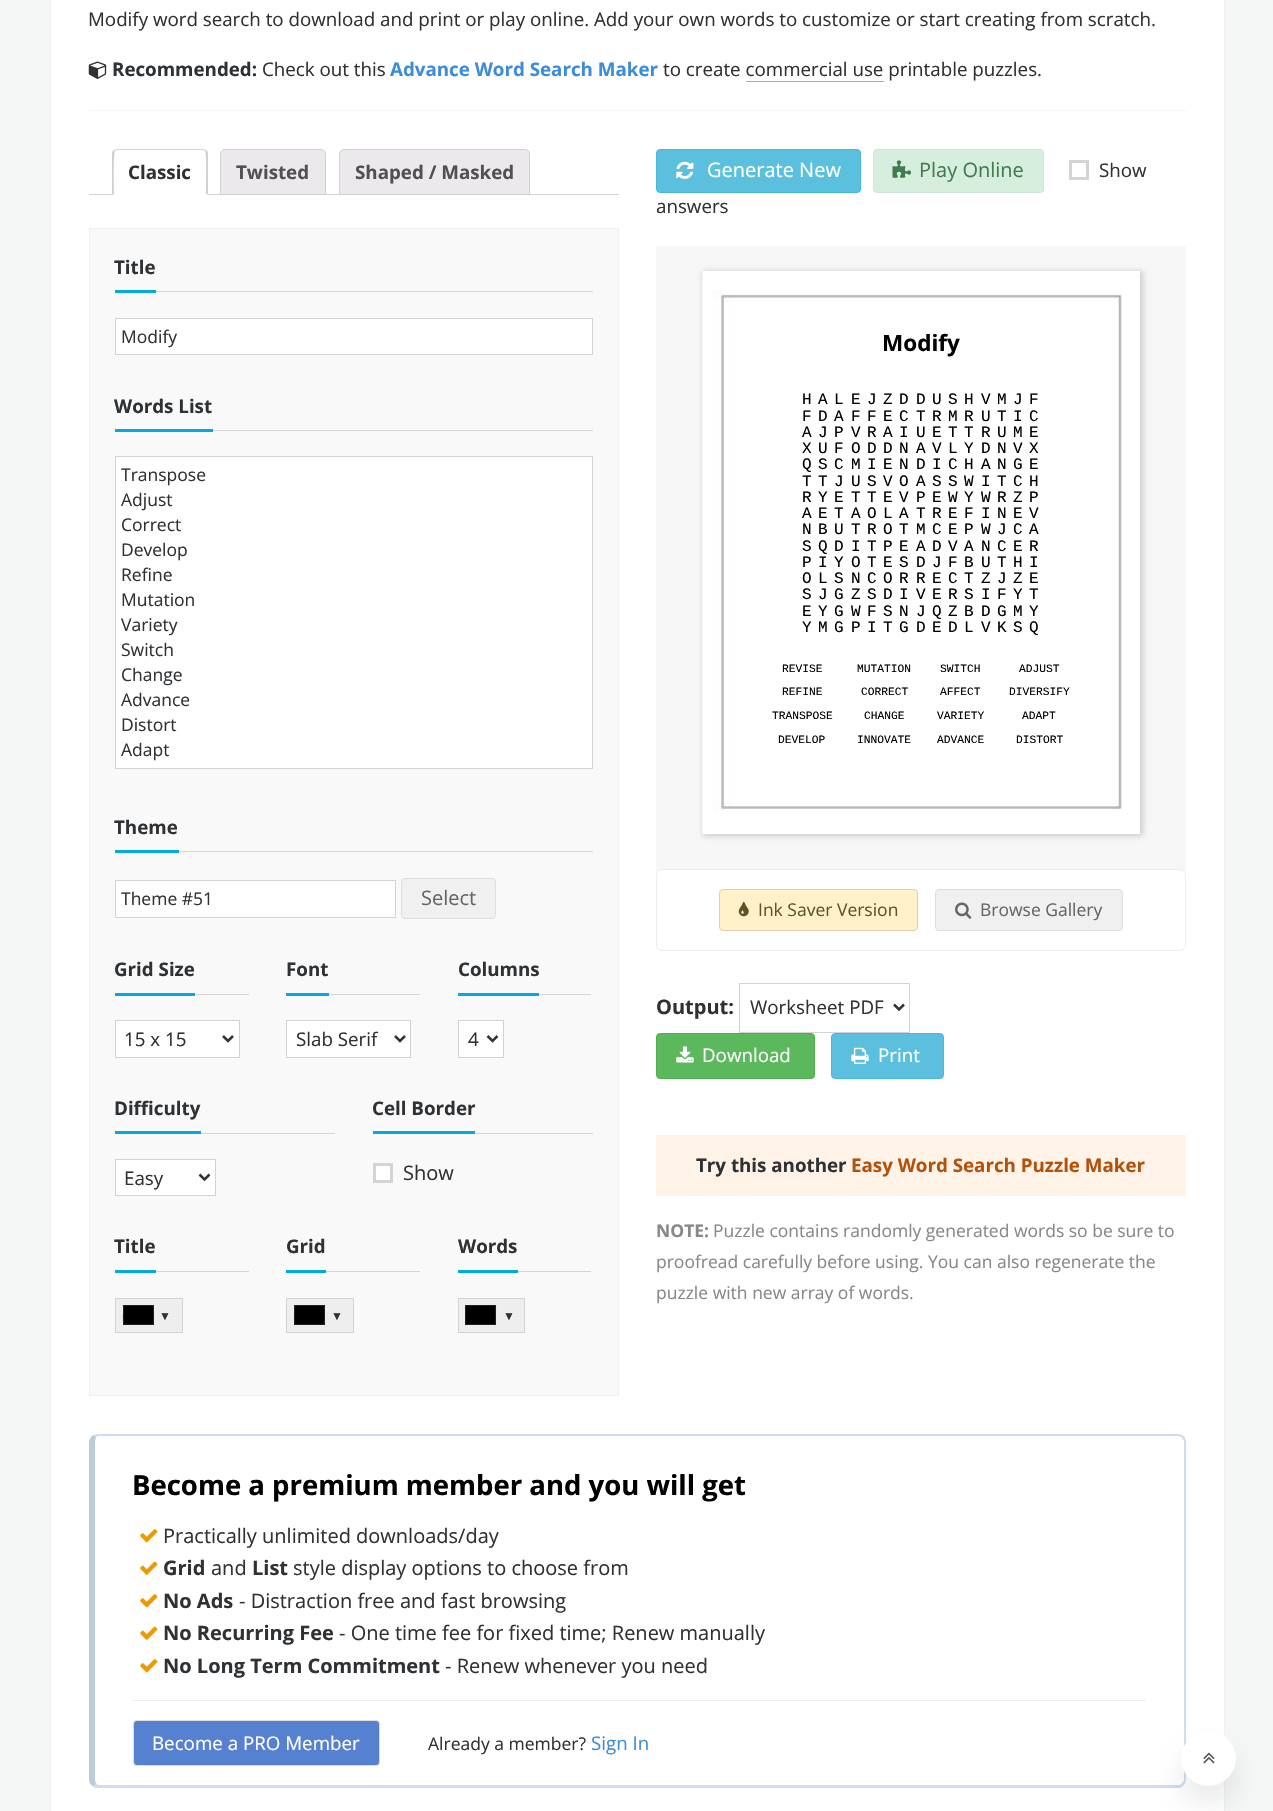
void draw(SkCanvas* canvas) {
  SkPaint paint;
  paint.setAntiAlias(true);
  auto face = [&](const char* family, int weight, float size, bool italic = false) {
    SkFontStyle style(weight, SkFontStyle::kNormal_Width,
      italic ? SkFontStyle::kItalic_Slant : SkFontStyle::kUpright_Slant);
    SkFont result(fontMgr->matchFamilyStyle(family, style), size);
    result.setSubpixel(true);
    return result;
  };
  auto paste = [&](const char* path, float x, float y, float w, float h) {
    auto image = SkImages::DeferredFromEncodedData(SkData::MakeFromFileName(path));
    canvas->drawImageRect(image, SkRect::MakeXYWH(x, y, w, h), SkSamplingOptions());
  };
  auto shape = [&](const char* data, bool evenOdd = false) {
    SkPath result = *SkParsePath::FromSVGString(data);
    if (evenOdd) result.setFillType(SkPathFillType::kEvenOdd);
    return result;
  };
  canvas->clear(0xfff5f6f6);
  paint.setColor(0xffffffff);
  canvas->drawRect(SkRect::MakeXYWH(50.5f, -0.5f, 1174, 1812), paint);
  paint.setStroke(true);
  paint.setStrokeWidth(1);
  paint.setColor(0xffeff0f0);
  canvas->drawRect(SkRect::MakeXYWH(50.5f, -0.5f, 1174, 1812), paint);
  paint.setStroke(false);
  paint.setColor(0xfff5f5f5);
  canvas->drawRect(SkRect::MakeXYWH(89, 110, 1097, 1), paint);
  paste("img/1.png", 88, 61, 19, 18);
  paint.setColor(0xffaaaaaa);
  canvas->drawRect(SkRect::MakeXYWH(746, 81, 138, 1), paint);
  paint.setColor(0xffebe9eb);
  canvas->drawPath(shape("M225 149.5H321C323.5 149.5 325.5 151.5 325.5 154V194.5H220.5V154C220.5 151.5 222.5 149.5 225 149.5Z"), paint);
  paint.setStroke(true);
  paint.setColor(0xffd3ced2);
  canvas->drawPath(shape("M225 149.5H321C323.5 149.5 325.5 151.5 325.5 154V194.5H220.5V154C220.5 151.5 222.5 149.5 225 149.5Z"), paint);
  paint.setStroke(false);
  paint.setColor(0xffebe9eb);
  canvas->drawPath(shape("M344 149.5H525C527.5 149.5 529.5 151.5 529.5 154V194.5H339.5V154C339.5 151.5 341.5 149.5 344 149.5Z"), paint);
  paint.setStroke(true);
  paint.setColor(0xffd3ced2);
  canvas->drawPath(shape("M344 149.5H525C527.5 149.5 529.5 151.5 529.5 154V194.5H339.5V154C339.5 151.5 341.5 149.5 344 149.5Z"), paint);
  paint.setStroke(false);
  canvas->drawRect(SkRect::MakeXYWH(89, 194, 530, 1), paint);
  paint.setColor(0xffffffff);
  canvas->drawPath(shape("M118 149H203C206 149 208 151 208 154V195H113V154C113 151 115 149 118 149Z"), paint);
  paint.setColor(0xffd3ced2);
  canvas->drawPath(shape("M118 149L114 150L115 151L117 150H203L205 151L206 150L202 149Z"), paint);
  canvas->drawPath(shape("M206 150L208 152V195L206 194C206 188 207 154 205 151Z"), paint);
  paint.setColor(0xffffffff);
  canvas->drawPath(shape("M208 195L206 194H114L112 195Z"), paint);
  paint.setColor(0xffd3ced2);
  canvas->drawPath(shape("M112 195L114 194C114 188 113 154 115 151L114 150L112 152Z"), paint);
  paint.setColor(0xfff9f9f9);
  canvas->drawRect(SkRect::MakeXYWH(89.5f, 228.5f, 529, 1167), paint);
  paint.setStroke(true);
  paint.setColor(0xfff0f0f0);
  canvas->drawRect(SkRect::MakeXYWH(89.5f, 228.5f, 529, 1167), paint);
  paint.setStroke(false);
  paint.setColor(0xffd6d6d6);
  canvas->drawRect(SkRect::MakeXYWH(156, 291, 437, 1), paint);
  paint.setColor(0xff00a9e0);
  canvas->drawRect(SkRect::MakeXYWH(115, 290, 41, 3), paint);
  paint.setColor(0xffffffff);
  canvas->drawRect(SkRect::MakeXYWH(115.5f, 318.5f, 477, 36), paint);
  paint.setStroke(true);
  paint.setColor(0xffd3d3d3);
  canvas->drawRect(SkRect::MakeXYWH(115.5f, 318.5f, 477, 36), paint);
  paint.setStroke(false);
  paint.setColor(0xffd6d6d6);
  canvas->drawRect(SkRect::MakeXYWH(213, 430, 380, 1), paint);
  paint.setColor(0xff00a9e0);
  canvas->drawRect(SkRect::MakeXYWH(115, 429, 98, 3), paint);
  paint.setColor(0xffffffff);
  canvas->drawRect(SkRect::MakeXYWH(115.5f, 456.5f, 477, 312), paint);
  paint.setStroke(true);
  paint.setColor(0xffd3d3d3);
  canvas->drawRect(SkRect::MakeXYWH(115.5f, 456.5f, 477, 312), paint);
  paint.setStroke(false);
  paint.setColor(0xffd6d6d6);
  canvas->drawRect(SkRect::MakeXYWH(179, 851, 414, 1), paint);
  paint.setColor(0xff00a9e0);
  canvas->drawRect(SkRect::MakeXYWH(115, 850, 64, 3), paint);
  paint.setColor(0xffffffff);
  canvas->drawRect(SkRect::MakeXYWH(115.5f, 880.5f, 280, 37), paint);
  paint.setStroke(true);
  paint.setColor(0xffd3d3d3);
  canvas->drawRect(SkRect::MakeXYWH(115.5f, 880.5f, 280, 37), paint);
  paint.setStroke(false);
  paint.setColor(0xfff0f0f0);
  canvas->drawRoundRect(SkRect::MakeXYWH(401.5f, 878.5f, 94, 40), 3.5f, 3.5f, paint);
  paint.setStroke(true);
  paint.setColor(0xffdddddd);
  canvas->drawRoundRect(SkRect::MakeXYWH(401.5f, 878.5f, 94, 40), 3.5f, 3.5f, paint);
  paint.setStroke(false);
  paint.setColor(0xffd6d6d6);
  canvas->drawRect(SkRect::MakeXYWH(195, 994, 54, 1), paint);
  paint.setColor(0xff00a9e0);
  canvas->drawRect(SkRect::MakeXYWH(115, 993, 80, 3), paint);
  paint.setColor(0xffffffff);
  canvas->drawRect(SkRect::MakeXYWH(115.5f, 1020.5f, 124, 37), paint);
  paint.setStroke(true);
  paint.setColor(0xffd3d3d3);
  canvas->drawRect(SkRect::MakeXYWH(115.5f, 1020.5f, 124, 37), paint);
  paint.setStrokeWidth(2.5f);
  paint.setColor(0xff333333);
  canvas->drawPath(shape("M223 1036L228 1041L233 1036"), paint);
  paint.setStroke(false);
  paint.setColor(0xffd6d6d6);
  canvas->drawRect(SkRect::MakeXYWH(329, 994, 91, 1), paint);
  paint.setColor(0xff00a9e0);
  canvas->drawRect(SkRect::MakeXYWH(286, 993, 43, 3), paint);
  paint.setColor(0xffffffff);
  canvas->drawRect(SkRect::MakeXYWH(286.5f, 1020.5f, 124, 37), paint);
  paint.setStroke(true);
  paint.setStrokeWidth(1);
  paint.setColor(0xffd3d3d3);
  canvas->drawRect(SkRect::MakeXYWH(286.5f, 1020.5f, 124, 37), paint);
  paint.setStrokeWidth(2.5f);
  paint.setColor(0xff333333);
  canvas->drawPath(shape("M395 1036L400 1041L405 1036"), paint);
  paint.setStroke(false);
  paint.setColor(0xffd6d6d6);
  canvas->drawRect(SkRect::MakeXYWH(539, 994, 52, 1), paint);
  paint.setColor(0xff00a9e0);
  canvas->drawRect(SkRect::MakeXYWH(458, 993, 81, 3), paint);
  paint.setColor(0xffffffff);
  canvas->drawRect(SkRect::MakeXYWH(458.5f, 1020.5f, 45, 37), paint);
  paint.setStroke(true);
  paint.setStrokeWidth(1);
  paint.setColor(0xffd3d3d3);
  canvas->drawRect(SkRect::MakeXYWH(458.5f, 1020.5f, 45, 37), paint);
  paint.setStrokeWidth(2.5f);
  paint.setColor(0xff333333);
  canvas->drawPath(shape("M487.5 1036L492.5 1041L497.5 1036"), paint);
  paint.setStroke(false);
  paint.setColor(0xffd6d6d6);
  canvas->drawRect(SkRect::MakeXYWH(201, 1133, 134, 1), paint);
  paint.setColor(0xff00a9e0);
  canvas->drawRect(SkRect::MakeXYWH(115, 1131, 86, 3), paint);
  paint.setColor(0xffffffff);
  canvas->drawRect(SkRect::MakeXYWH(115.5f, 1159.5f, 100, 36), paint);
  paint.setStroke(true);
  paint.setStrokeWidth(1);
  paint.setColor(0xffd3d3d3);
  canvas->drawRect(SkRect::MakeXYWH(115.5f, 1159.5f, 100, 36), paint);
  paint.setStrokeWidth(2.5f);
  paint.setColor(0xff333333);
  canvas->drawPath(shape("M199.5 1174.5L204.5 1179.5L209.5 1174.5"), paint);
  paint.setStroke(false);
  paint.setColor(0xffd6d6d6);
  canvas->drawRect(SkRect::MakeXYWH(475, 1133, 118, 1), paint);
  paint.setColor(0xff00a9e0);
  canvas->drawRect(SkRect::MakeXYWH(373, 1131, 102, 3), paint);
  paint.setColor(0xffffffff);
  canvas->drawRect(SkRect::MakeXYWH(374.5f, 1164.5f, 17, 17), paint);
  paint.setStroke(true);
  paint.setStrokeWidth(3);
  paint.setColor(0xffd4d4d4);
  canvas->drawRect(SkRect::MakeXYWH(374.5f, 1164.5f, 17, 17), paint);
  paint.setStroke(false);
  paint.setColor(0xffd6d6d6);
  canvas->drawRect(SkRect::MakeXYWH(156, 1271, 93, 1), paint);
  paint.setColor(0xff00a9e0);
  canvas->drawRect(SkRect::MakeXYWH(115, 1270, 41, 3), paint);
  paint.setColor(0xffeeeeee);
  canvas->drawRect(SkRect::MakeXYWH(115.5f, 1298.5f, 67, 34), paint);
  paint.setStroke(true);
  paint.setStrokeWidth(1);
  paint.setColor(0xffd3d3d3);
  canvas->drawRect(SkRect::MakeXYWH(115.5f, 1298.5f, 67, 34), paint);
  paste("img/2.png", 122, 1305, 1, 20);
  paint.setColor(0xff222222);
  canvas->drawRect(SkRect::MakeXYWH(123.5f, 1305.5f, 30, 19), paint);
  paint.setStroke(false);
  {
    const struct { float x, y, w, h; SkColor color; } items[] = {
      {124, 1306, 29, 18, 0xff000000},
      {326, 1271, 94, 1, 0xffd6d6d6},
      {286, 1270, 40, 3, 0xff00a9e0},
    };
    for (auto [x, y, w, h, color] : items) {
      paint.setColor(color);
      canvas->drawRect(SkRect::MakeXYWH(x, y, w, h), paint);
    }
  }
  paint.setColor(0xffeeeeee);
  canvas->drawRect(SkRect::MakeXYWH(286.5f, 1298.5f, 67, 34), paint);
  paint.setStroke(true);
  paint.setColor(0xffd3d3d3);
  canvas->drawRect(SkRect::MakeXYWH(286.5f, 1298.5f, 67, 34), paint);
  paste("img/3.png", 293, 1305, 1, 20);
  paint.setColor(0xff222222);
  canvas->drawRect(SkRect::MakeXYWH(294.5f, 1305.5f, 30, 19), paint);
  paint.setStroke(false);
  {
    const struct { float x, y, w, h; SkColor color; } items[] = {
      {295, 1306, 29, 18, 0xff000000},
      {518, 1271, 73, 1, 0xffd6d6d6},
      {458, 1270, 60, 3, 0xff00a9e0},
    };
    for (auto [x, y, w, h, color] : items) {
      paint.setColor(color);
      canvas->drawRect(SkRect::MakeXYWH(x, y, w, h), paint);
    }
  }
  paint.setColor(0xffeeeeee);
  canvas->drawRect(SkRect::MakeXYWH(458.5f, 1298.5f, 66, 34), paint);
  paint.setStroke(true);
  paint.setColor(0xffd3d3d3);
  canvas->drawRect(SkRect::MakeXYWH(458.5f, 1298.5f, 66, 34), paint);
  paste("img/4.png", 496, 1305, 1, 20);
  paint.setColor(0xff222222);
  canvas->drawRect(SkRect::MakeXYWH(465.5f, 1305.5f, 30, 19), paint);
  paint.setStroke(false);
  paint.setColor(0xff000000);
  canvas->drawRect(SkRect::MakeXYWH(466, 1306, 29, 18), paint);
  paint.setColor(0xffd6eedd);
  canvas->drawRoundRect(SkRect::MakeXYWH(873.5f, 149.5f, 170, 43), 3.5f, 3.5f, paint);
  paint.setStroke(true);
  paint.setColor(0xffd3e3d8);
  canvas->drawRoundRect(SkRect::MakeXYWH(873.5f, 149.5f, 170, 43), 3.5f, 3.5f, paint);
  paste("img/5.png", 892, 160, 20, 18);
  paint.setStrokeWidth(3);
  paint.setColor(0xffd4d4d4);
  canvas->drawRect(SkRect::MakeXYWH(1070.5f, 161.5f, 17, 17), paint);
  paint.setStroke(false);
  paint.setColor(0xff5bc0de);
  canvas->drawRoundRect(SkRect::MakeXYWH(656.5f, 149.5f, 204, 43), 3.5f, 3.5f, paint);
  paint.setStroke(true);
  paint.setStrokeWidth(1);
  paint.setColor(0xff46b8da);
  canvas->drawRoundRect(SkRect::MakeXYWH(656.5f, 149.5f, 204, 43), 3.5f, 3.5f, paint);
  paste("img/6.png", 676, 161, 18, 18);
  paint.setStroke(false);
  paint.setColor(0xfff7f7f7);
  canvas->drawRect(SkRect::MakeXYWH(656, 246, 530, 625), paint);
  paint.setColor(0xffcccccc);
  paint.setMaskFilter(SkMaskFilter::MakeBlur(kNormal_SkBlurStyle, 3));
  canvas->drawRect(SkRect::MakeXYWH(703, 271, 440, 565), paint);
  paint.setMaskFilter(nullptr);
  paint.setColor(0xffffffff);
  canvas->drawRect(SkRect::MakeXYWH(703, 271, 437, 563), paint);
  paste("img/7.png", 702, 271, 421, 563);
  canvas->drawRoundRect(SkRect::MakeXYWH(656.5f, 869.5f, 529, 81), 5.5f, 5.5f, paint);
  paint.setStroke(true);
  paint.setColor(0xffececec);
  canvas->drawRoundRect(SkRect::MakeXYWH(656.5f, 869.5f, 529, 81), 5.5f, 5.5f, paint);
  paint.setStroke(false);
  paint.setColor(0xfffff1ca);
  canvas->drawRoundRect(SkRect::MakeXYWH(719.5f, 889.5f, 198, 41), 3.5f, 3.5f, paint);
  paint.setStroke(true);
  paint.setColor(0xffddd1aa);
  canvas->drawRoundRect(SkRect::MakeXYWH(719.5f, 889.5f, 198, 41), 3.5f, 3.5f, paint);
  paste("img/8.png", 738, 901, 11, 16);
  paint.setStroke(false);
  paint.setColor(0xfff0f0f0);
  canvas->drawRoundRect(SkRect::MakeXYWH(935.5f, 889.5f, 187, 41), 3.5f, 3.5f, paint);
  paint.setStroke(true);
  paint.setColor(0xffdddddd);
  canvas->drawRoundRect(SkRect::MakeXYWH(935.5f, 889.5f, 187, 41), 3.5f, 3.5f, paint);
  paste("img/9.png", 955, 902, 17, 17);
  paint.setColor(0xffd3d3d3);
  canvas->drawRect(SkRect::MakeXYWH(739.5f, 983.5f, 170, 49), paint);
  paint.setStrokeWidth(2.5f);
  paint.setColor(0xff333333);
  canvas->drawPath(shape("M894 1004.5L899 1009.5L904 1004.5"), paint);
  paint.setStroke(false);
  paint.setColor(0xff5cb85c);
  canvas->drawRoundRect(SkRect::MakeXYWH(656.5f, 1033.5f, 158, 45), 3.5f, 3.5f, paint);
  paint.setStroke(true);
  paint.setStrokeWidth(1);
  paint.setColor(0xff4cae4c);
  canvas->drawRoundRect(SkRect::MakeXYWH(656.5f, 1033.5f, 158, 45), 3.5f, 3.5f, paint);
  paste("img/10.png", 676, 1046, 18, 17);
  paint.setStroke(false);
  paint.setColor(0xff5bc0de);
  canvas->drawRoundRect(SkRect::MakeXYWH(831.5f, 1033.5f, 112, 45), 3.5f, 3.5f, paint);
  paint.setStroke(true);
  paint.setColor(0xff46b8da);
  canvas->drawRoundRect(SkRect::MakeXYWH(831.5f, 1033.5f, 112, 45), 3.5f, 3.5f, paint);
  paste("img/11.png", 851, 1047, 18, 17);
  paint.setStroke(false);
  paint.setColor(0xfffff3e8);
  canvas->drawRect(SkRect::MakeXYWH(656, 1135, 530, 61), paint);
  paint.setColor(0xffcdddee);
  canvas->drawPath(shape("M98 1434C96 1434 94 1435 93 1435L96 1437L98 1436H1178C1180 1436 1181 1437 1182 1438L1184 1436C1182 1435 1180 1434 1178 1434Z"), paint);
  canvas->drawPath(shape("M1184 1436C1185 1438 1186 1440 1186 1442V1779C1186 1781 1185 1783 1184 1785L1182 1783C1183 1782 1184 1781 1184 1779V1441L1182 1438Z"), paint);
  canvas->drawPath(shape("M95 1788L92 1786L97 1784L98 1785H1180L1182 1783L1184 1785L1180 1788Z"), paint);
  paint.setColor(0xffbbcbdb);
  canvas->drawPath(shape("M93 1435C91 1437 89 1439 89 1442V1779C89 1782 90 1784 92 1786L97 1784C95 1783 95 1781 95 1779V1441L96 1437Z"), paint);
  paste("img/12.png", 140, 1529, 18, 14);
  paste("img/13.png", 140, 1561, 18, 14);
  paste("img/12.png", 140, 1594, 18, 14);
  paste("img/13.png", 140, 1626, 18, 14);
  paste("img/12.png", 140, 1659, 18, 14);
  paint.setColor(0xffeeeeee);
  canvas->drawRect(SkRect::MakeXYWH(133, 1700, 1013, 1), paint);
  paint.setColor(0xff5680d0);
  canvas->drawRoundRect(SkRect::MakeXYWH(133.5f, 1720.5f, 246, 45), 3.5f, 3.5f, paint);
  paint.setStroke(true);
  paint.setColor(0xffdddddd);
  canvas->drawRoundRect(SkRect::MakeXYWH(133.5f, 1720.5f, 246, 45), 3.5f, 3.5f, paint);
  paint.setStroke(false);
  paint.setColor(0x260e1114);
  paint.setMaskFilter(SkMaskFilter::MakeBlur(kNormal_SkBlurStyle, 17.5f));
  canvas->drawRoundRect(SkRect::MakeXYWH(1186, 1754, 45, 45), 22.5f, 22.5f, paint);
  paint.setMaskFilter(nullptr);
  paint.setColor(0xffffffff);
  canvas->drawCircle(1208.5f, 1758.5f, 27.5f, paint);
  paste("img/14.png", 1203, 1752, 12, 12);
  auto f0 = face("Open Sans", 400, 18.75f);
  paint.setColor(0xff2f3235);
  canvas->drawString("Modify word search to download and print or play online. Add your own words to customize or start creating from scratch.", 88, 26, f0, paint);
  auto f1 = face("Open Sans", 700, 18.75f);
  canvas->drawString("Recommended:", 112, 76, f1, paint);
  canvas->drawString("Check out this", 262, 76, f0, paint);
  paint.setColor(0xff3d8cd9);
  canvas->drawString("Advance Word Search Maker", 390, 76, f1, paint);
  paint.setColor(0xff2f3235);
  canvas->drawString("to create commercial use printable puzzles.", 663, 76, f0, paint);
  canvas->drawString("Classic", 128, 179, f1, paint);
  paint.setColor(0xff515151);
  canvas->drawString("Twisted", 236, 179, f1, paint);
  canvas->drawString("Shaped / Masked", 355, 179, f1, paint);
  paint.setColor(0xff2f3235);
  canvas->drawString("Title", 114, 274, f1, paint);
  auto f2 = face("Open Sans", 400, 17.5f);
  canvas->drawString("Modify", 121, 343, f2, paint);
  canvas->drawString("Words List", 114, 413, f1, paint);
  {
    const struct { const char* s; float x, y; } items[] = {
      {"Transpose", 121, 481},
      {"Adjust", 121, 506},
      {"Correct", 121, 531},
      {"Develop", 121, 556},
      {"Refine", 121, 581},
      {"Mutation", 121, 606},
      {"Variety", 121, 631},
      {"Switch", 121, 656},
      {"Change", 121, 681},
      {"Advance", 121, 706},
      {"Distort", 121, 731},
      {"Adapt", 121, 756},
    };
    for (auto [s, x, y] : items) {
      canvas->drawString(s, x, y, f2, paint);
    }
  }
  canvas->drawString("Theme", 114, 834, f1, paint);
  canvas->drawString("Theme #51", 121, 905, f2, paint);
  auto f3 = face("Open Sans", 400, 20);
  paint.setColor(0xff666666);
  canvas->drawString("Select", 421, 905, f3, paint);
  paint.setColor(0xff2f3235);
  canvas->drawString("Grid Size", 114, 976, f1, paint);
  canvas->drawString("15 x 15", 124, 1046, f0, paint);
  canvas->drawString("Font", 286, 976, f1, paint);
  canvas->drawString("Slab Serif", 296, 1046, f0, paint);
  canvas->drawString("Columns", 458, 976, f1, paint);
  canvas->drawString("4", 468, 1046, f0, paint);
  canvas->drawString("Difficulty", 114, 1115, f1, paint);
  canvas->drawString("Easy", 124, 1185, f0, paint);
  canvas->drawString("Cell Border", 372, 1115, f1, paint);
  canvas->drawString("Show", 403, 1180, f3, paint);
  canvas->drawString("Title", 114, 1253, f1, paint);
  auto f4 = face("Liberation Serif", 400, 12);
  canvas->drawString("▼", 159, 1320, f4, paint);
  canvas->drawString("Grid", 286, 1253, f1, paint);
  canvas->drawString("▼", 331, 1320, f4, paint);
  canvas->drawString("Words", 458, 1253, f1, paint);
  canvas->drawString("▼", 503, 1320, f4, paint);
  paint.setColor(0xff437b50);
  canvas->drawString("Play Online", 919, 177, f3, paint);
  paint.setColor(0xff2f3235);
  canvas->drawString("Show", 1099, 177, f0, paint);
  canvas->drawString("answers", 656, 213, f0, paint);
  paint.setColor(0xffffffff);
  canvas->drawString("Generate New", 707, 177, f3, paint);
  auto f5 = face("Open Sans", 700, 22.5f);
  paint.setColor(0xff000000);
  canvas->drawString("Modify", 882, 351, f5, paint);
  auto f6 = face("Liberation Mono", 400, 16);
  {
    const struct { const char* s; float x, y; } items[] = {
      {"H", 802, 404},
      {"A", 818, 404},
      {"L", 834, 404},
      {"E", 851, 404},
      {"J", 867, 404},
      {"Z", 883, 404},
      {"D", 899, 404},
      {"D", 916, 404},
      {"U", 932, 404},
      {"S", 948, 404},
      {"H", 964, 404},
      {"V", 981, 404},
      {"M", 997, 404},
      {"J", 1013, 404},
      {"F", 1029, 404},
      {"F", 802, 421},
      {"D", 818, 421},
      {"A", 834, 421},
      {"F", 851, 421},
      {"F", 867, 421},
      {"E", 883, 421},
      {"C", 899, 421},
      {"T", 916, 421},
      {"R", 932, 421},
      {"M", 948, 421},
      {"R", 964, 421},
      {"U", 981, 421},
      {"T", 997, 421},
      {"I", 1013, 421},
      {"C", 1029, 421},
      {"A", 802, 437},
      {"J", 818, 437},
      {"P", 834, 437},
      {"V", 851, 437},
      {"R", 867, 437},
      {"A", 883, 437},
      {"I", 899, 437},
      {"U", 916, 437},
      {"E", 932, 437},
      {"T", 948, 437},
      {"T", 964, 437},
      {"R", 981, 437},
      {"U", 997, 437},
      {"M", 1013, 437},
      {"E", 1029, 437},
      {"X", 802, 453},
      {"U", 818, 453},
      {"F", 834, 453},
      {"O", 851, 453},
      {"D", 867, 453},
      {"D", 883, 453},
      {"N", 899, 453},
      {"A", 916, 453},
      {"V", 932, 453},
      {"L", 948, 453},
      {"Y", 964, 453},
      {"D", 981, 453},
      {"N", 997, 453},
      {"V", 1013, 453},
      {"X", 1029, 453},
      {"Q", 802, 469},
      {"S", 818, 469},
      {"C", 834, 469},
      {"M", 851, 469},
      {"I", 867, 469},
      {"E", 883, 469},
      {"N", 899, 469},
      {"D", 916, 469},
      {"I", 932, 469},
      {"C", 948, 469},
      {"H", 964, 469},
      {"A", 981, 469},
      {"N", 997, 469},
      {"G", 1013, 469},
      {"E", 1029, 469},
      {"T", 802, 486},
      {"T", 818, 486},
      {"J", 834, 486},
      {"U", 851, 486},
      {"S", 867, 486},
      {"V", 883, 486},
      {"O", 899, 486},
      {"A", 916, 486},
      {"S", 932, 486},
      {"S", 948, 486},
      {"W", 964, 486},
      {"I", 981, 486},
      {"T", 997, 486},
      {"C", 1013, 486},
      {"H", 1029, 486},
      {"R", 802, 502},
      {"Y", 818, 502},
      {"E", 834, 502},
      {"T", 851, 502},
      {"T", 867, 502},
      {"E", 883, 502},
      {"V", 899, 502},
      {"P", 916, 502},
      {"E", 932, 502},
      {"W", 948, 502},
      {"Y", 964, 502},
      {"W", 981, 502},
      {"R", 997, 502},
      {"Z", 1013, 502},
      {"P", 1029, 502},
      {"A", 802, 518},
      {"E", 818, 518},
      {"T", 834, 518},
      {"A", 851, 518},
      {"O", 867, 518},
      {"L", 883, 518},
      {"A", 899, 518},
      {"T", 916, 518},
      {"R", 932, 518},
      {"E", 948, 518},
      {"F", 964, 518},
      {"I", 981, 518},
      {"N", 997, 518},
      {"E", 1013, 518},
      {"V", 1029, 518},
      {"N", 802, 534},
      {"B", 818, 534},
      {"U", 834, 534},
      {"T", 851, 534},
      {"R", 867, 534},
      {"O", 883, 534},
      {"T", 899, 534},
      {"M", 916, 534},
      {"C", 932, 534},
      {"E", 948, 534},
      {"P", 964, 534},
      {"W", 981, 534},
      {"J", 997, 534},
      {"C", 1013, 534},
      {"A", 1029, 534},
      {"S", 802, 551},
      {"Q", 818, 551},
      {"D", 834, 551},
      {"I", 851, 551},
      {"T", 867, 551},
      {"P", 883, 551},
      {"E", 899, 551},
      {"A", 916, 551},
      {"D", 932, 551},
      {"V", 948, 551},
      {"A", 964, 551},
      {"N", 981, 551},
      {"C", 997, 551},
      {"E", 1013, 551},
      {"R", 1029, 551},
      {"P", 802, 567},
      {"I", 818, 567},
      {"Y", 834, 567},
      {"O", 851, 567},
      {"T", 867, 567},
      {"E", 883, 567},
      {"S", 899, 567},
      {"D", 916, 567},
      {"J", 932, 567},
      {"F", 948, 567},
      {"B", 964, 567},
      {"U", 981, 567},
      {"T", 997, 567},
      {"H", 1013, 567},
      {"I", 1029, 567},
      {"O", 802, 583},
      {"L", 818, 583},
      {"S", 834, 583},
      {"N", 851, 583},
      {"C", 867, 583},
      {"O", 883, 583},
      {"R", 899, 583},
      {"R", 916, 583},
      {"E", 932, 583},
      {"C", 948, 583},
      {"T", 964, 583},
      {"Z", 981, 583},
      {"J", 997, 583},
      {"Z", 1013, 583},
      {"E", 1029, 583},
      {"S", 802, 599},
      {"J", 818, 599},
      {"G", 834, 599},
      {"Z", 851, 599},
      {"S", 867, 599},
      {"D", 883, 599},
      {"I", 899, 599},
      {"V", 916, 599},
      {"E", 932, 599},
      {"R", 948, 599},
      {"S", 964, 599},
      {"I", 981, 599},
      {"F", 997, 599},
      {"Y", 1013, 599},
      {"T", 1029, 599},
      {"E", 802, 616},
      {"Y", 818, 616},
      {"G", 834, 616},
      {"W", 851, 616},
      {"F", 867, 616},
      {"S", 883, 616},
      {"N", 899, 616},
      {"J", 916, 616},
      {"Q", 932, 616},
      {"Z", 948, 616},
      {"B", 964, 616},
      {"D", 981, 616},
      {"G", 997, 616},
      {"M", 1013, 616},
      {"Y", 1029, 616},
      {"Y", 802, 632},
      {"M", 818, 632},
      {"G", 834, 632},
      {"P", 851, 632},
      {"I", 867, 632},
      {"T", 883, 632},
      {"G", 899, 632},
      {"D", 916, 632},
      {"E", 932, 632},
      {"D", 948, 632},
      {"L", 964, 632},
      {"V", 981, 632},
      {"K", 997, 632},
      {"S", 1013, 632},
      {"Q", 1029, 632},
    };
    for (auto [s, x, y] : items) {
      canvas->drawString(s, x, y, f6, paint);
    }
  }
  auto f7 = face("Liberation Mono", 400, 11.25f);
  {
    const struct { const char* s; float x, y; } items[] = {
      {"REVISE", 782, 672},
      {"MUTATION", 857, 672},
      {"SWITCH", 940, 672},
      {"ADJUST", 1019, 672},
      {"REFINE", 782, 695},
      {"CORRECT", 861, 695},
      {"AFFECT", 940, 695},
      {"DIVERSIFY", 1009, 695},
      {"TRANSPOSE", 772, 719},
      {"CHANGE", 864, 719},
      {"VARIETY", 937, 719},
      {"ADAPT", 1022, 719},
      {"DEVELOP", 778, 743},
      {"INNOVATE", 857, 743},
      {"ADVANCE", 937, 743},
      {"DISTORT", 1016, 743},
    };
    for (auto [s, x, y] : items) {
      canvas->drawString(s, x, y, f7, paint);
    }
  }
  paint.setColor(0xff625224);
  canvas->drawString("Ink Saver Version", 758, 916, f2, paint);
  paint.setColor(0xff666666);
  canvas->drawString("Browse Gallery", 980, 916, f2, paint);
  auto f8 = face("Open Sans", 700, 20);
  paint.setColor(0xff2f3235);
  canvas->drawString("Output:", 656, 1014, f8, paint);
  canvas->drawString("Worksheet PDF", 750, 1014, f0, paint);
  paint.setColor(0xffffffff);
  canvas->drawString("Download", 702, 1062, f0, paint);
  canvas->drawString("Print", 878, 1062, f0, paint);
  paint.setColor(0xff2f3235);
  canvas->drawString("Try this another", 696, 1172, f1, paint);
  paint.setColor(0xffb3510a);
  canvas->drawString("Easy Word Search Puzzle Maker", 851, 1172, f1, paint);
  auto f9 = face("Open Sans", 700, 17.5f);
  paint.setColor(0xff888888);
  canvas->drawString("NOTE:", 656, 1237, f9, paint);
  {
    const struct { const char* s; float x, y; } items[] = {
      {"Puzzle contains randomly generated words so be sure to", 713, 1237},
      {"proofread carefully before using. You can also regenerate the", 656, 1268},
      {"puzzle with new array of words.", 656, 1299},
    };
    for (auto [s, x, y] : items) {
      canvas->drawString(s, x, y, f2, paint);
    }
  }
  auto f10 = face("Open Sans", 700, 27.5f);
  paint.setColor(0xff000000);
  canvas->drawString("Become a premium member and you will get", 132, 1495, f10, paint);
  paint.setColor(0xff2f3235);
  canvas->drawString("Practically unlimited downloads/day", 163, 1543, f3, paint);
  canvas->drawString("Grid", 163, 1575, f8, paint);
  canvas->drawString("and", 211, 1575, f3, paint);
  canvas->drawString("List", 252, 1575, f8, paint);
  canvas->drawString("style display options to choose from", 293, 1575, f3, paint);
  canvas->drawString("No Ads", 163, 1608, f8, paint);
  canvas->drawString("- Distraction free and fast browsing", 239, 1608, f3, paint);
  canvas->drawString("No Recurring Fee", 163, 1640, f8, paint);
  canvas->drawString("- One time fee for fixed time; Renew manually", 339, 1640, f3, paint);
  canvas->drawString("No Long Term Commitment", 163, 1673, f8, paint);
  canvas->drawString("- Renew whenever you need", 445, 1673, f3, paint);
  paint.setColor(0xffffffff);
  canvas->drawString("Become a PRO Member", 152, 1750, f0, paint);
  paint.setColor(0xff2f3235);
  canvas->drawString("Already a member?", 428, 1750, f2, paint);
  paint.setColor(0xff3d8cd9);
  canvas->drawString("Sign In", 591, 1750, f0, paint);
}
